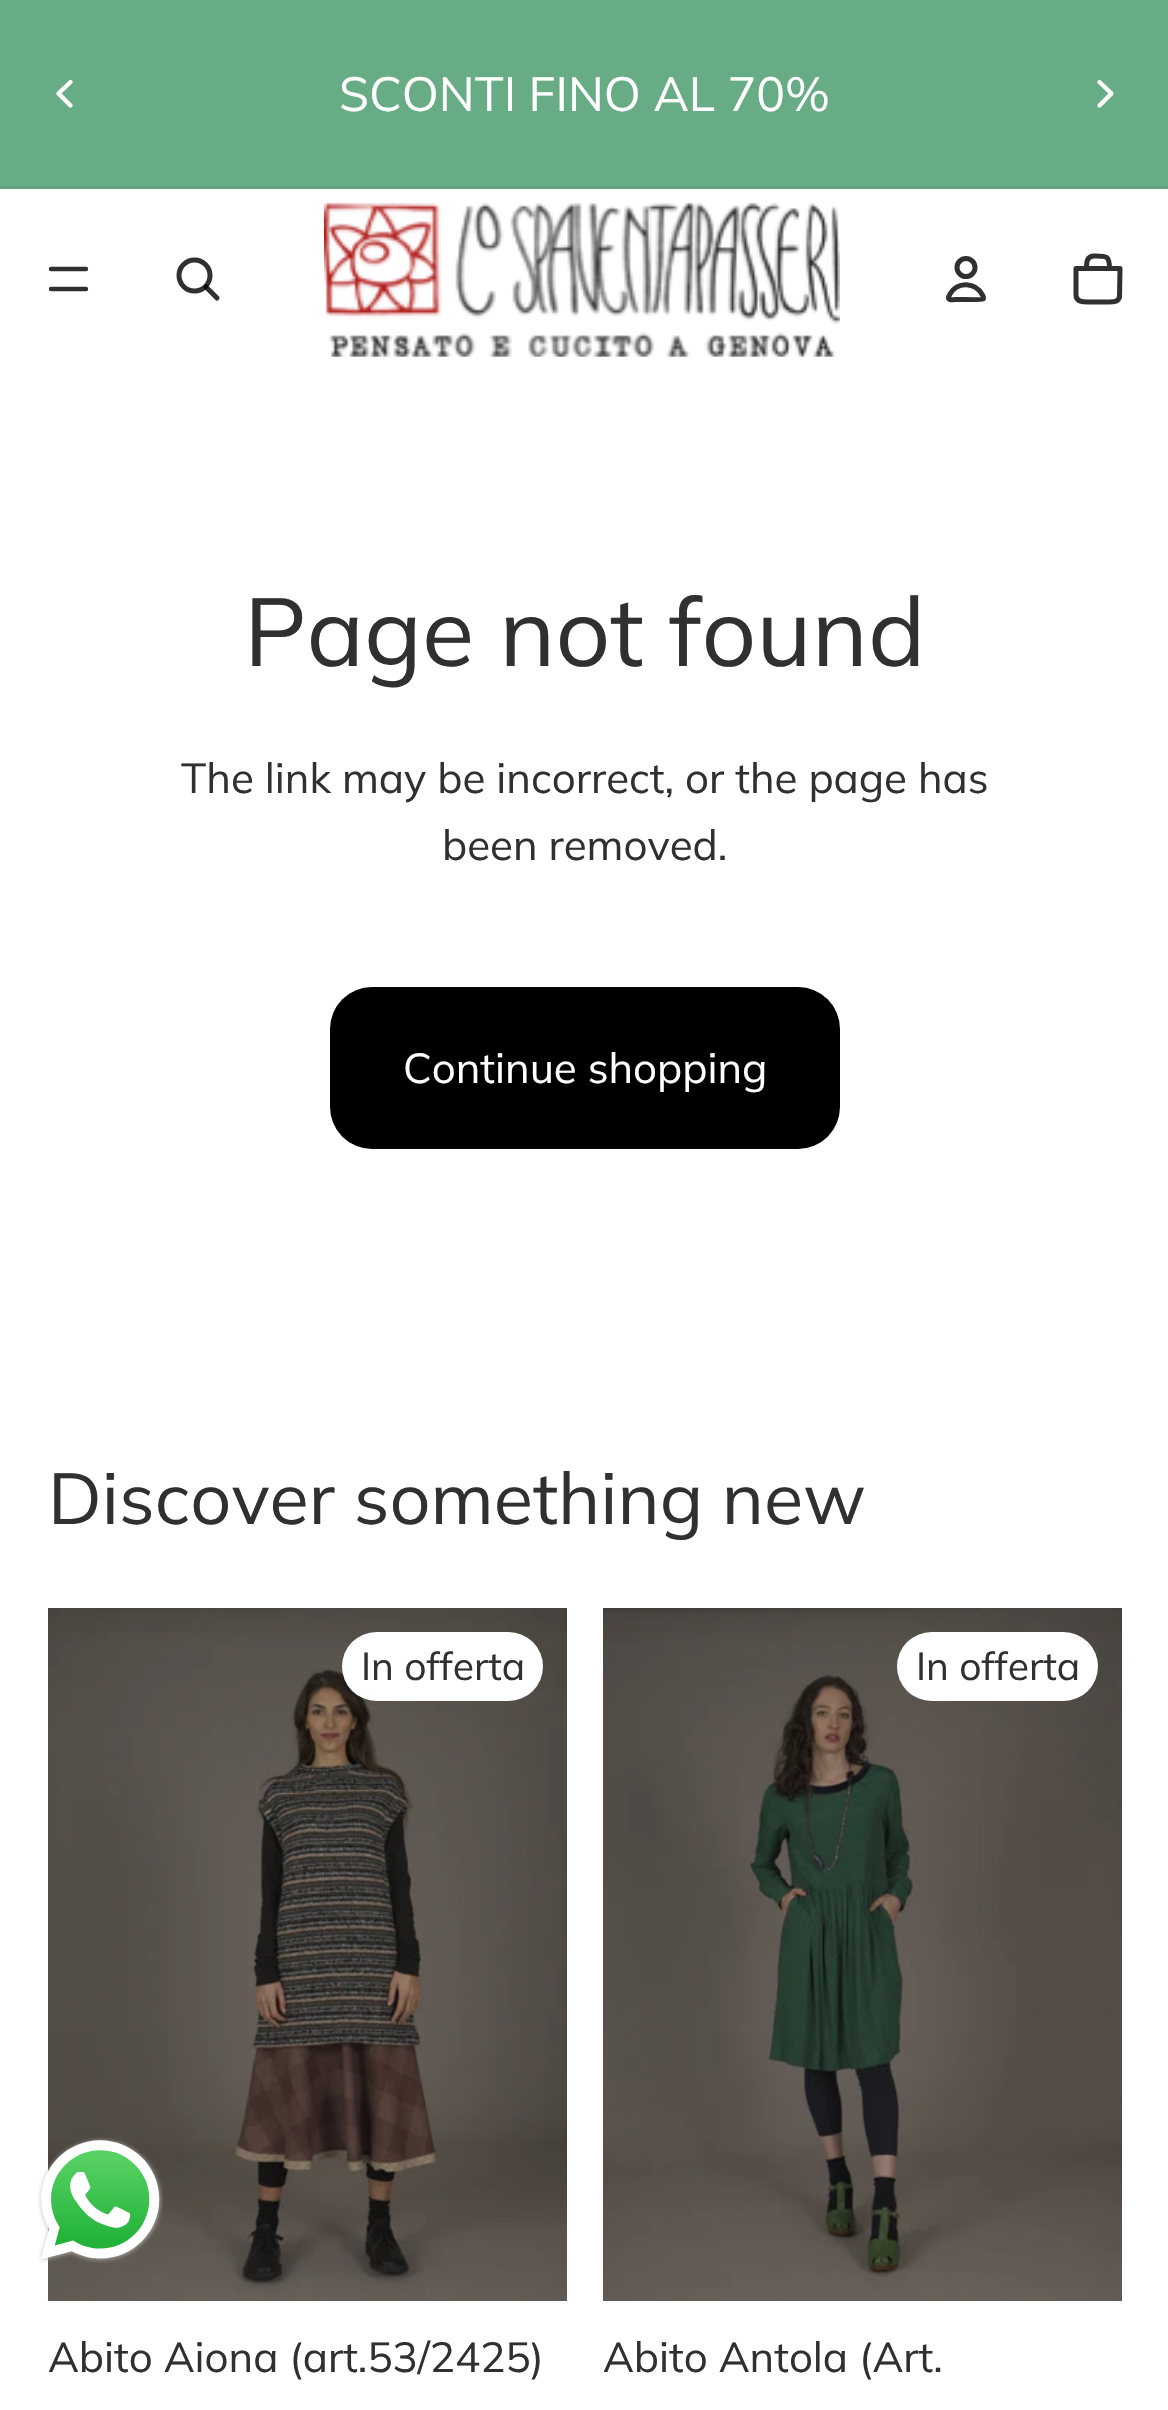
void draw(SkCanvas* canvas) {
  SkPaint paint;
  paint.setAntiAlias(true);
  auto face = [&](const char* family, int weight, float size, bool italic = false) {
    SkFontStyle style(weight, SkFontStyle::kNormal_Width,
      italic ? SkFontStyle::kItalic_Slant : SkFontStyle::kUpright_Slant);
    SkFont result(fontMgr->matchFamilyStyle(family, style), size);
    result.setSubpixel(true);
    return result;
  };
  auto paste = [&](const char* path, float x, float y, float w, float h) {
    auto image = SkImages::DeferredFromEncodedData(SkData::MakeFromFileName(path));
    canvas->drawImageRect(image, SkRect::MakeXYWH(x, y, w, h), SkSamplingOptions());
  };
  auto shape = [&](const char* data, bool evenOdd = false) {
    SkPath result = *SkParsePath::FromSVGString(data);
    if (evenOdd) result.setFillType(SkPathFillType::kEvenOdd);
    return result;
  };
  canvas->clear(0xffffffff);
  paint.setColor(0xff67ac85);
  canvas->drawRect(SkRect::MakeXYWH(0, 0, 1168, 186), paint);
  paint.setColor(0xff61a27d);
  canvas->drawRect(SkRect::MakeXYWH(0, 186, 1168, 3), paint);
  paint.setStroke(true);
  paint.setStrokeWidth(4.4f);
  paint.setStrokeCap(SkPaint::kRound_Cap);
  paint.setStrokeJoin(SkPaint::kRound_Join);
  paint.setColor(0xffffffff);
  canvas->drawPath(shape("M70.5 82L58.5 93.5L70.5 105.5"), paint);
  canvas->drawPath(shape("M1099.5 82L1111.5 93.5L1099.5 105.5"), paint);
  paint.setStrokeJoin(SkPaint::kMiter_Join);
  paint.setColor(0xff303030);
  canvas->drawPath(shape("M51 269H86M51 289H86"), paint);
  paint.setStrokeWidth(5);
  paint.setStrokeCap(SkPaint::kButt_Cap);
  canvas->drawCircle(194.5f, 275.5f, 15.5f, paint);
  paint.setStrokeCap(SkPaint::kRound_Cap);
  paint.setStrokeJoin(SkPaint::kRound_Join);
  paint.setColor(0xcf000000);
  canvas->drawPath(shape("M206 287L217 298"), paint);
  paste("img/1.png", 324, 202, 516, 155);
  paint.setStrokeCap(SkPaint::kButt_Cap);
  paint.setStrokeJoin(SkPaint::kMiter_Join);
  paint.setColor(0xff303030);
  canvas->drawCircle(966, 267.5f, 9, paint);
  paint.setStrokeCap(SkPaint::kRound_Cap);
  paint.setStrokeJoin(SkPaint::kRound_Join);
  canvas->drawPath(shape("M950 294L948.5 297C947.5 301 955 299.5 955.5 299.5H961C963.5 299.5 981.5 300 983 299L983.5 298.5C984 297.5 983 296 982.5 295C975.5 282 957.5 281 950 294"), paint);
  canvas->drawPath(shape("M1076 268.5H1120L1119.5 297C1118 302.5 1112.5 302 1108 302H1088C1083 302 1076 302 1076 295ZM1094 256C1106.5 256 1109.5 255.5 1109.5 268.5H1086.5C1086.5 263 1086.5 256 1094 256"), paint);
  paint.setStroke(false);
  paint.setColor(0xff000000);
  canvas->drawRoundRect(SkRect::MakeXYWH(330, 987, 510, 162), 42, 42, paint);
  paste("img/2.png", 48, 1608, 519, 693);
  paint.setColor(0xffffffff);
  canvas->drawRoundRect(SkRect::MakeXYWH(342, 1632, 201, 69), 34.5f, 34.5f, paint);
  paste("img/3.png", 603, 1608, 519, 693);
  canvas->drawRoundRect(SkRect::MakeXYWH(897, 1632, 201, 69), 34.5f, 34.5f, paint);
  paste("img/4.png", 38, 2137, 126, 126);
  auto f0 = face("Muli", 400, 48);
  canvas->drawString("SCONTI FINO AL 70%", 339, 111, f0, paint);
  auto f1 = face("Muli", 400, 96);
  paint.setColor(0xff303030);
  canvas->drawString("Page not found", 244, 666, f1, paint);
  auto f2 = face("Muli", 400, 42);
  canvas->drawString("The link may be incorrect, or the page has", 181, 793, f2, paint);
  canvas->drawString("been removed.", 442, 860, f2, paint);
  paint.setColor(0xffffffff);
  canvas->drawString("Continue shopping", 403, 1083, f2, paint);
  auto f3 = face("Muli", 400, 72);
  paint.setColor(0xff303030);
  canvas->drawString("Discover something new", 48, 1524, f3, paint);
  auto f4 = face("Muli", 400, 39);
  canvas->drawString("In offerta", 361, 1680, f4, paint);
  canvas->drawString("Abito Aiona (art.53/2425)", 48, 2372, f2, paint);
  canvas->drawString("In offerta", 916, 1680, f4, paint);
  canvas->drawString("Abito Antola (Art.", 603, 2372, f2, paint);
}
